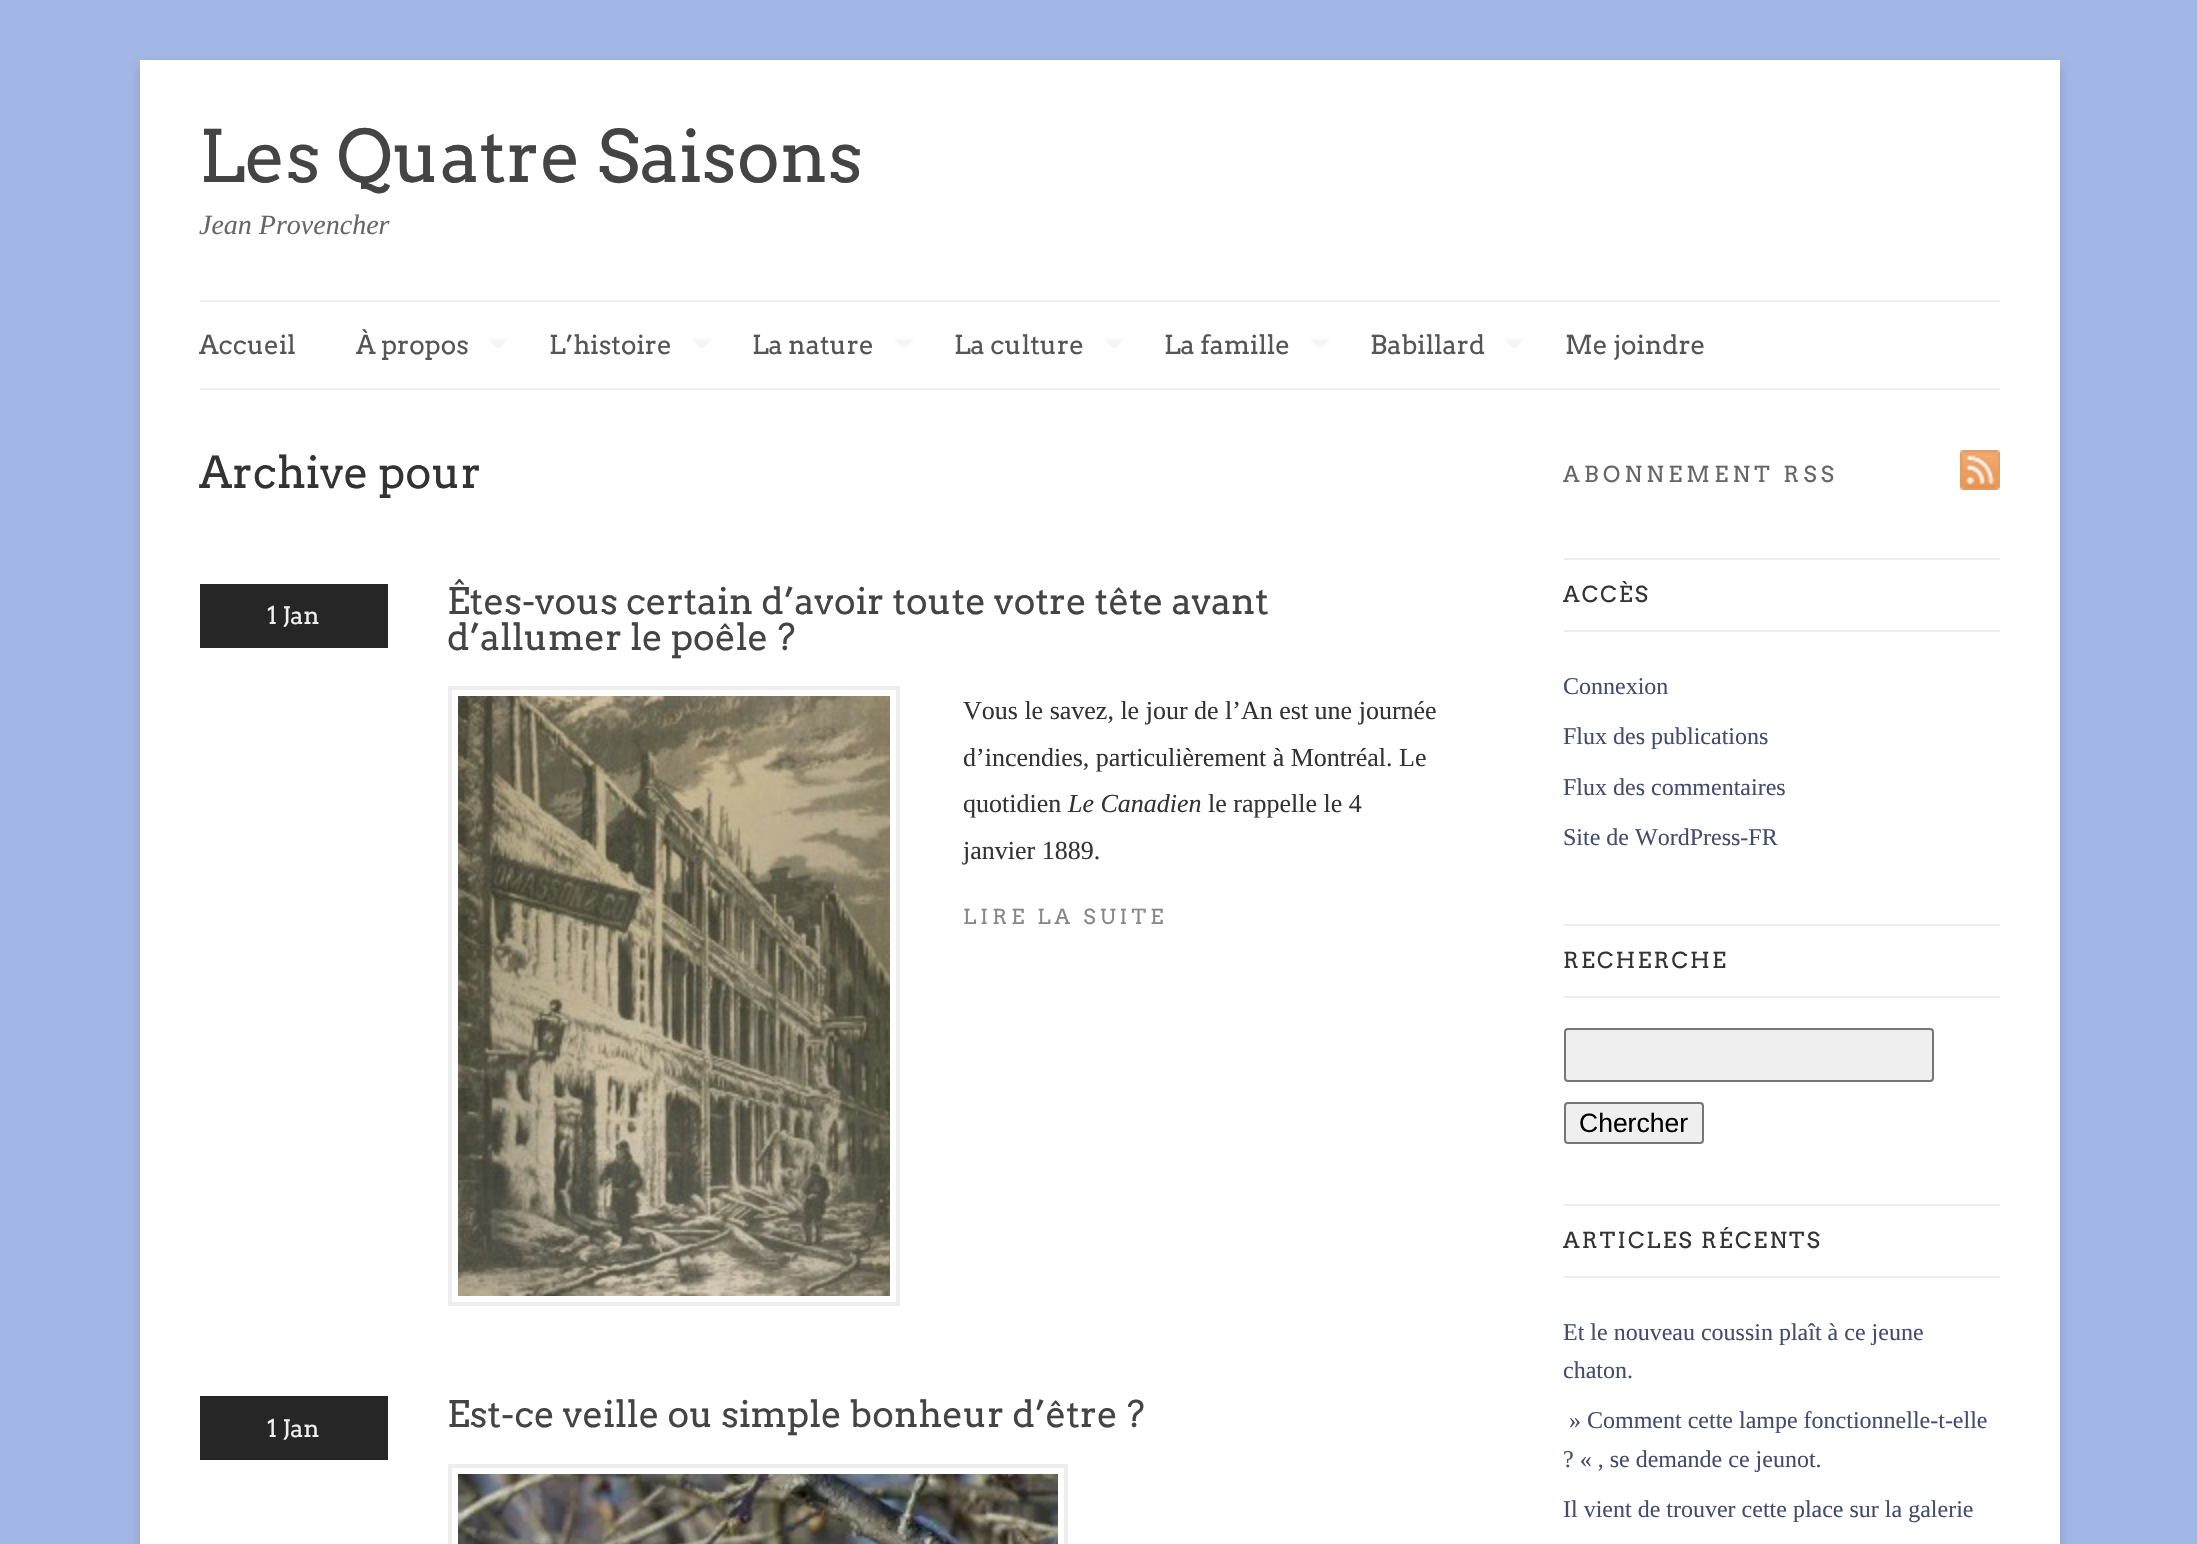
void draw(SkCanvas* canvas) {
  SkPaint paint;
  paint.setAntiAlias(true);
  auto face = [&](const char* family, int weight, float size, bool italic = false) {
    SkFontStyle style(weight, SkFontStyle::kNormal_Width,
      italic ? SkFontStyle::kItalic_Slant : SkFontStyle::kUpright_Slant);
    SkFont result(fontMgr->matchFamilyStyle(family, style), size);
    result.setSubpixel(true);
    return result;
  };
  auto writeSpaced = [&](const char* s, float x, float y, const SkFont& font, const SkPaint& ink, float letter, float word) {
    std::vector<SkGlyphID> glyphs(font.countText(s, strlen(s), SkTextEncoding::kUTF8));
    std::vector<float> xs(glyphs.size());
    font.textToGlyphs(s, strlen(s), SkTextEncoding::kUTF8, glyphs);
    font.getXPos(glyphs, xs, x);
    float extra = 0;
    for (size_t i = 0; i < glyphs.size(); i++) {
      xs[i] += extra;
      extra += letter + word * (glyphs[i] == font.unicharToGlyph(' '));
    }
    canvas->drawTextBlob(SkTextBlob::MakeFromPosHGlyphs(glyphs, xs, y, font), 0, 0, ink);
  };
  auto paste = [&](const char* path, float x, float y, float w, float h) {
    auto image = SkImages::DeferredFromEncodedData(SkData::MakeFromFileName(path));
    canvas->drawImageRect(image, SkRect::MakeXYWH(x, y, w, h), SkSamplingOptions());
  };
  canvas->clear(0xffa2b7e6);
  paint.setColor(0x4d646464);
  paint.setMaskFilter(SkMaskFilter::MakeBlur(kNormal_SkBlurStyle, 6));
  canvas->drawRect(SkRect::MakeXYWH(140, 64, 1920, 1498), paint);
  paint.setMaskFilter(nullptr);
  {
    const struct { float x, y, w, h; SkColor color; } items[] = {
      {140, 60, 1920, 1484, 0xffffffff},
      {200, 300, 1800, 2, 0xffefefef},
      {200, 388, 1800, 2, 0xffefefef},
    };
    for (auto [x, y, w, h, color] : items) {
      paint.setColor(color);
      canvas->drawRect(SkRect::MakeXYWH(x, y, w, h), paint);
    }
  }
  paste("img/1.png", 488, 338, 20, 10);
  paste("img/1.png", 692, 338, 20, 10);
  paste("img/1.png", 894, 338, 20, 10);
  paste("img/1.png", 1104, 338, 20, 10);
  paste("img/1.png", 1310, 338, 20, 10);
  paste("img/1.png", 1504, 338, 20, 10);
  paint.setColor(0xff262626);
  canvas->drawRect(SkRect::MakeXYWH(200, 584, 188, 64), paint);
  paint.setStroke(true);
  paint.setStrokeWidth(4);
  paint.setColor(0xffeeeeee);
  canvas->drawRect(SkRect::MakeXYWH(450, 688, 448, 616), paint);
  paste("img/2.png", 458, 696, 432, 600);
  paint.setStroke(false);
  paint.setColor(0xff262626);
  canvas->drawRect(SkRect::MakeXYWH(200, 1396, 188, 64), paint);
  paint.setStroke(true);
  paint.setColor(0xffeeeeee);
  canvas->drawRect(SkRect::MakeXYWH(450, 1466, 616, 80), paint);
  paste("img/3.png", 458, 1474, 600, 70);
  paste("img/4.png", 1960, 450, 40, 40);
  paint.setStroke(false);
  {
    const struct { float x, y, w, h; SkColor color; } items[] = {
      {1564, 558, 436, 2, 0xffeeeeee},
      {1564, 630, 436, 2, 0xffeeeeee},
      {1564, 924, 436, 2, 0xffeeeeee},
      {1564, 996, 436, 2, 0xffeeeeee},
    };
    for (auto [x, y, w, h, color] : items) {
      paint.setColor(color);
      canvas->drawRect(SkRect::MakeXYWH(x, y, w, h), paint);
    }
  }
  paint.setColor(0xffefefef);
  canvas->drawRoundRect(SkRect::MakeXYWH(1565, 1029, 368, 52), 3, 3, paint);
  paint.setStroke(true);
  paint.setStrokeWidth(2);
  paint.setColor(0xff767676);
  canvas->drawRoundRect(SkRect::MakeXYWH(1565, 1029, 368, 52), 3, 3, paint);
  paint.setStroke(false);
  paint.setColor(0xffefefef);
  canvas->drawRoundRect(SkRect::MakeXYWH(1565, 1103, 138, 40), 3, 3, paint);
  paint.setStroke(true);
  paint.setColor(0xff767676);
  canvas->drawRoundRect(SkRect::MakeXYWH(1565, 1103, 138, 40), 3, 3, paint);
  paint.setStroke(false);
  paint.setColor(0xffeeeeee);
  canvas->drawRect(SkRect::MakeXYWH(1564, 1204, 436, 2), paint);
  canvas->drawRect(SkRect::MakeXYWH(1564, 1276, 436, 2), paint);
  auto f0 = face("Arvo", 400, 72);
  paint.setColor(0xff444444);
  canvas->drawString("Les Quatre Saisons", 199, 182, f0, paint);
  auto f1 = face("Liberation Serif", 400, 28, true);
  paint.setColor(0xff666666);
  canvas->drawString("Jean Provencher", 199, 234, f1, paint);
  auto f2 = face("Arvo", 400, 26);
  paint.setColor(0xff555555);
  {
    const struct { const char* s; float x, y; } items[] = {
      {"Accueil", 199, 354},
      {"À propos", 356, 354},
      {"L’histoire", 549, 354},
      {"La nature", 752, 354},
      {"La culture", 954, 354},
      {"La famille", 1164, 354},
      {"Babillard", 1370, 354},
      {"Me joindre", 1565, 354},
    };
    for (auto [s, x, y] : items) {
      canvas->drawString(s, x, y, f2, paint);
    }
  }
  auto f3 = face("Arvo", 400, 44);
  paint.setColor(0xff333333);
  canvas->drawString("Archive pour", 199, 488, f3, paint);
  auto f4 = face("Arvo", 400, 24);
  paint.setColor(0xffefefef);
  canvas->drawString("1 Jan", 267, 624, f4, paint);
  auto f5 = face("Arvo", 400, 36.4f);
  paint.setColor(0xff444444);
  canvas->drawString("Êtes-vous certain d’avoir toute votre tête avant", 447, 614, f5, paint);
  canvas->drawString("d’allumer le poêle ?", 447, 650, f5, paint);
  auto f6 = face("Liberation Serif", 400, 26);
  paint.setColor(0xff333333);
  {
    const struct { const char* s; float x, y; } items[] = {
      {"Vous le savez, le jour de l’An est une journée", 963, 719},
      {"d’incendies, particulièrement à Montréal. Le", 963, 766},
      {"quotidien", 963, 812},
    };
    for (auto [s, x, y] : items) {
      canvas->drawString(s, x, y, f6, paint);
    }
  }
  auto f7 = face("Liberation Serif", 400, 26, true);
  canvas->drawString("Le Canadien", 1068, 812, f7, paint);
  canvas->drawString("le rappelle le 4", 1208, 812, f6, paint);
  canvas->drawString("janvier 1889.", 963, 859, f6, paint);
  auto f8 = face("Arvo", 400, 20.75f);
  paint.setColor(0xff888888);
  writeSpaced("LIRE LA SUITE", 963, 924, f8, paint, 4.2f, 0);
  paint.setColor(0xffefefef);
  canvas->drawString("1 Jan", 267, 1437, f4, paint);
  paint.setColor(0xff444444);
  canvas->drawString("Est-ce veille ou simple bonheur d’être ?", 447, 1427, f5, paint);
  auto f9 = face("Arvo", 400, 22);
  paint.setColor(0xff666666);
  writeSpaced("ABONNEMENT RSS", 1563, 482, f9, paint, 4.4f, 0);
  paint.setColor(0xff333333);
  writeSpaced("ACCÈS", 1563, 602, f9, paint, 2.25f, 0);
  auto f10 = face("Liberation Serif", 400, 24);
  paint.setColor(0xff434c6d);
  {
    const struct { const char* s; float x, y; } items[] = {
      {"Connexion", 1563, 694},
      {"Flux des publications", 1563, 744},
      {"Flux des commentaires", 1563, 795},
      {"Site de WordPress-FR", 1563, 845},
    };
    for (auto [s, x, y] : items) {
      canvas->drawString(s, x, y, f10, paint);
    }
  }
  paint.setColor(0xff333333);
  writeSpaced("RECHERCHE", 1563, 968, f9, paint, 2.25f, 0);
  auto f11 = face("Liberation Sans", 400, 26.5f);
  paint.setColor(0xff000000);
  canvas->drawString("Chercher", 1579, 1132, f11, paint);
  paint.setColor(0xff333333);
  writeSpaced("ARTICLES RÉCENTS", 1563, 1248, f9, paint, 2.25f, 0);
  paint.setColor(0xff434c6d);
  {
    const struct { const char* s; float x, y; } items[] = {
      {"Et le nouveau coussin plaît à ce jeune", 1563, 1340},
      {"chaton.", 1563, 1378},
      {"» Comment cette lampe fonctionnelle-t-elle", 1569, 1428},
      {"? « , se demande ce jeunot.", 1563, 1467},
      {"Il vient de trouver cette place sur la galerie", 1563, 1517},
    };
    for (auto [s, x, y] : items) {
      canvas->drawString(s, x, y, f10, paint);
    }
  }
}
